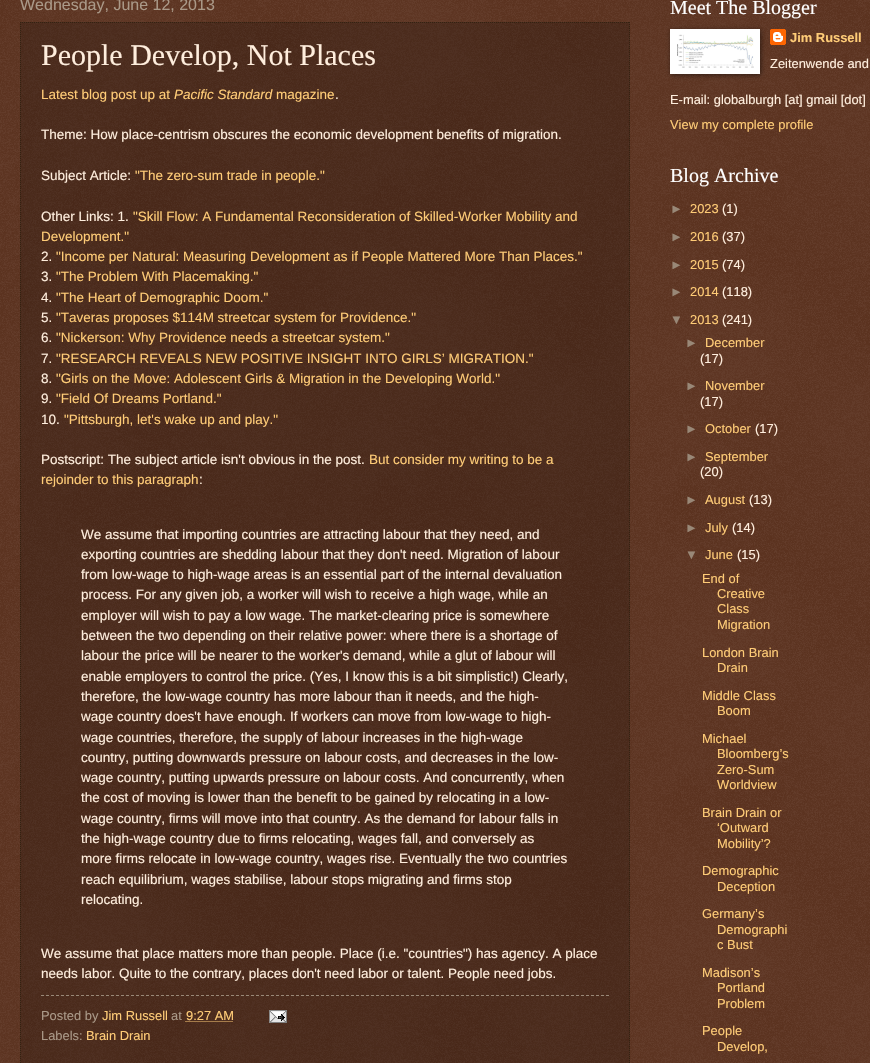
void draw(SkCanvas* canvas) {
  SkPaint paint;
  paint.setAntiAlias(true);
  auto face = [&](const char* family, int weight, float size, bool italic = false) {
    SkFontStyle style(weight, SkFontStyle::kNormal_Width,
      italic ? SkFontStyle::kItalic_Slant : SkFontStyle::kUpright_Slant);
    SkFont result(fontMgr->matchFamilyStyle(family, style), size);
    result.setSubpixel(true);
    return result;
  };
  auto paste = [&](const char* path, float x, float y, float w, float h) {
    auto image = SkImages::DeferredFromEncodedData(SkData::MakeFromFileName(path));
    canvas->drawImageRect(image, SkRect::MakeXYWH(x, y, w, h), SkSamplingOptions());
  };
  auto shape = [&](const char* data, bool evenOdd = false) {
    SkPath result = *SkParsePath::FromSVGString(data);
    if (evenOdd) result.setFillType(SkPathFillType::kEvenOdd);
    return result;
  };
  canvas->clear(0xff441500);
  paste("img/1.png", 0, 0, 870, 1063);
  paint.setColor(0x33000000);
  canvas->drawRect(SkRect::MakeXYWH(20, 22, 610, 1041), paint);
  paint.setStroke(true);
  paint.setStrokeWidth(1);
  paint.setColor(0xff332211);
  paint.setPathEffect(SkDashPathEffect::Make({{1, 1}}, 0));
  canvas->drawPath(shape("M20 22.5H630"), paint);
  paint.setPathEffect(nullptr);
  paint.setPathEffect(SkDashPathEffect::Make({{1, 1}}, 0));
  canvas->drawPath(shape("M629.5 22V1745"), paint);
  paint.setPathEffect(nullptr);
  paint.setPathEffect(SkDashPathEffect::Make({{1, 1}}, 0));
  canvas->drawPath(shape("M20.5 22V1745"), paint);
  paint.setPathEffect(nullptr);
  paint.setColor(0xff998877);
  paint.setPathEffect(SkDashPathEffect::Make({{3, 2}}, 0));
  canvas->drawPath(shape("M41 995.5H609"), paint);
  paint.setPathEffect(nullptr);
  paint.setColor(0xffffcc77);
  paint.setPathEffect(SkDashPathEffect::Make({{1, 1}}, 0));
  canvas->drawPath(shape("M185.5 1021.5H233.5"), paint);
  paint.setPathEffect(nullptr);
  paste("img/2.png", 269, 1010, 18, 13);
  paint.setStroke(false);
  paint.setColor(0x80000000);
  paint.setMaskFilter(SkMaskFilter::MakeBlur(kNormal_SkBlurStyle, 2.5f));
  canvas->drawRect(SkRect::MakeXYWH(671, 30, 90, 45), paint);
  paint.setMaskFilter(nullptr);
  paint.setColor(0xffffffff);
  canvas->drawRect(SkRect::MakeXYWH(670, 29, 90, 45), paint);
  paste("img/3.png", 677, 34, 77, 34);
  paste("img/4.png", 770, 29, 16, 16);
  auto f0 = face("Liberation Sans", 400, 16);
  paint.setColor(0xffaa9988);
  canvas->drawString("Wednesday, June 12, 2013", 20, 10, f0, paint);
  auto f1 = face("Liberation Serif", 400, 30);
  paint.setColor(0xffffeedd);
  canvas->drawString("People Develop, Not Places", 41, 65, f1, paint);
  auto f2 = face("Liberation Sans", 400, 13.5f);
  paint.setColor(0xffffcc77);
  canvas->drawString("Latest blog post up at", 41, 99, f2, paint);
  auto f3 = face("Liberation Sans", 400, 13.5f, true);
  canvas->drawString("Pacific Standard", 174, 99, f3, paint);
  canvas->drawString("magazine", 276, 99, f2, paint);
  paint.setColor(0xffffeedd);
  {
    const struct { const char* s; float x, y; } items[] = {
      {".", 335, 99},
      {"Theme: How place-centrism obscures the economic development benefits of migration.", 41, 139},
      {"Subject Article:", 41, 180},
    };
    for (auto [s, x, y] : items) {
      canvas->drawString(s, x, y, f2, paint);
    }
  }
  paint.setColor(0xffffcc77);
  canvas->drawString("\"The zero-sum trade in people.\"", 135, 180, f2, paint);
  paint.setColor(0xffffeedd);
  canvas->drawString("Other Links: 1.", 41, 221, f2, paint);
  paint.setColor(0xffffcc77);
  canvas->drawString("\"Skill Flow: A Fundamental Reconsideration of Skilled-Worker Mobility and", 133, 221, f2, paint);
  canvas->drawString("Development.\"", 41, 241, f2, paint);
  paint.setColor(0xffffeedd);
  canvas->drawString("2.", 41, 261, f2, paint);
  paint.setColor(0xffffcc77);
  canvas->drawString("\"Income per Natural: Measuring Development as if People Mattered More Than Places.\"", 56, 261, f2, paint);
  paint.setColor(0xffffeedd);
  canvas->drawString("3.", 41, 281, f2, paint);
  paint.setColor(0xffffcc77);
  canvas->drawString("\"The Problem With Placemaking.\"", 56, 281, f2, paint);
  paint.setColor(0xffffeedd);
  canvas->drawString("4.", 41, 302, f2, paint);
  paint.setColor(0xffffcc77);
  canvas->drawString("\"The Heart of Demographic Doom.\"", 56, 302, f2, paint);
  paint.setColor(0xffffeedd);
  canvas->drawString("5.", 41, 322, f2, paint);
  paint.setColor(0xffffcc77);
  canvas->drawString("\"Taveras proposes $114M streetcar system for Providence.\"", 56, 322, f2, paint);
  paint.setColor(0xffffeedd);
  canvas->drawString("6.", 41, 342, f2, paint);
  paint.setColor(0xffffcc77);
  canvas->drawString("\"Nickerson: Why Providence needs a streetcar system.\"", 56, 342, f2, paint);
  paint.setColor(0xffffeedd);
  canvas->drawString("7.", 41, 363, f2, paint);
  paint.setColor(0xffffcc77);
  canvas->drawString("\"RESEARCH REVEALS NEW POSITIVE INSIGHT INTO GIRLS’ MIGRATION.\"", 56, 363, f2, paint);
  paint.setColor(0xffffeedd);
  canvas->drawString("8.", 41, 383, f2, paint);
  paint.setColor(0xffffcc77);
  canvas->drawString("\"Girls on the Move: Adolescent Girls & Migration in the Developing World.\"", 56, 383, f2, paint);
  paint.setColor(0xffffeedd);
  canvas->drawString("9.", 41, 403, f2, paint);
  paint.setColor(0xffffcc77);
  canvas->drawString("\"Field Of Dreams Portland.\"", 56, 403, f2, paint);
  paint.setColor(0xffffeedd);
  canvas->drawString("10.", 41, 424, f2, paint);
  paint.setColor(0xffffcc77);
  canvas->drawString("\"Pittsburgh, let's wake up and play.\"", 64, 424, f2, paint);
  paint.setColor(0xffffeedd);
  canvas->drawString("Postscript: The subject article isn't obvious in the post.", 41, 464, f2, paint);
  paint.setColor(0xffffcc77);
  canvas->drawString("But consider my writing to be a", 369, 464, f2, paint);
  canvas->drawString("rejoinder to this paragraph", 41, 484, f2, paint);
  paint.setColor(0xffffeedd);
  {
    const struct { const char* s; float x, y; } items[] = {
      {":", 199, 484},
      {"We assume that importing countries are attracting labour that they need, and", 81, 539},
      {"exporting countries are shedding labour that they don't need. Migration of labour", 81, 559},
      {"from low-wage to high-wage areas is an essential part of the internal devaluation", 81, 579},
      {"process. For any given job, a worker will wish to receive a high wage, while an", 81, 599},
      {"employer will wish to pay a low wage. The market-clearing price is somewhere", 81, 620},
      {"between the two depending on their relative power: where there is a shortage of", 81, 640},
      {"labour the price will be nearer to the worker's demand, while a glut of labour will", 81, 660},
      {"enable employers to control the price. (Yes, I know this is a bit simplistic!) Clearly,", 81, 681},
      {"therefore, the low-wage country has more labour than it needs, and the high-", 81, 701},
      {"wage country does't have enough. If workers can move from low-wage to high-", 81, 721},
      {"wage countries, therefore, the supply of labour increases in the high-wage", 81, 742},
      {"country, putting downwards pressure on labour costs, and decreases in the low-", 81, 762},
      {"wage country, putting upwards pressure on labour costs. And concurrently, when", 81, 782},
      {"the cost of moving is lower than the benefit to be gained by relocating in a low-", 81, 802},
      {"wage country, firms will move into that country. As the demand for labour falls in", 81, 823},
      {"the high-wage country due to firms relocating, wages fall, and conversely as", 81, 843},
      {"more firms relocate in low-wage country, wages rise. Eventually the two countries", 81, 863},
      {"reach equilibrium, wages stabilise, labour stops migrating and firms stop", 81, 884},
      {"relocating.", 81, 904},
      {"We assume that place matters more than people. Place (i.e. \"countries\") has agency. A place", 41, 958},
      {"needs labor. Quite to the contrary, places don't need labor or talent. People need jobs.", 41, 978},
    };
    for (auto [s, x, y] : items) {
      canvas->drawString(s, x, y, f2, paint);
    }
  }
  auto f4 = face("Liberation Sans", 400, 12.9f);
  paint.setColor(0xffaa9988);
  canvas->drawString("Posted by", 41, 1020, f4, paint);
  paint.setColor(0xffffcc77);
  canvas->drawString("Jim Russell", 102, 1020, f4, paint);
  paint.setColor(0xffaa9988);
  canvas->drawString("at", 171, 1020, f4, paint);
  paint.setColor(0xffffcc77);
  canvas->drawString("9:27 AM", 186, 1020, f4, paint);
  paint.setColor(0xffaa9988);
  canvas->drawString("Labels:", 41, 1040, f4, paint);
  paint.setColor(0xffffcc77);
  canvas->drawString("Brain Drain", 86, 1040, f4, paint);
  auto f5 = face("Liberation Serif", 400, 20);
  paint.setColor(0xffffffff);
  canvas->drawString("Meet The Blogger", 670, 14, f5, paint);
  auto f6 = face("Liberation Sans", 700, 12.9f);
  paint.setColor(0xffffcc77);
  canvas->drawString("Jim Russell", 790, 42, f6, paint);
  paint.setColor(0xffffeedd);
  canvas->drawString("Zeitenwende and", 770, 68, f4, paint);
  canvas->drawString("E-mail: globalburgh [at] gmail [dot]", 670, 104, f4, paint);
  paint.setColor(0xffffcc77);
  canvas->drawString("View my complete profile", 670, 129, f4, paint);
  paint.setColor(0xffffffff);
  canvas->drawString("Blog Archive", 670, 182, f5, paint);
  paint.setColor(0xff998877);
  canvas->drawString("►", 670, 213, f4, paint);
  paint.setColor(0xffffcc77);
  canvas->drawString("2023", 690, 213, f4, paint);
  paint.setColor(0xffffeedd);
  canvas->drawString("(1)", 722, 213, f4, paint);
  paint.setColor(0xff998877);
  canvas->drawString("►", 670, 241, f4, paint);
  paint.setColor(0xffffcc77);
  canvas->drawString("2016", 690, 241, f4, paint);
  paint.setColor(0xffffeedd);
  canvas->drawString("(37)", 722, 241, f4, paint);
  paint.setColor(0xff998877);
  canvas->drawString("►", 670, 269, f4, paint);
  paint.setColor(0xffffcc77);
  canvas->drawString("2015", 690, 269, f4, paint);
  paint.setColor(0xffffeedd);
  canvas->drawString("(74)", 722, 269, f4, paint);
  paint.setColor(0xff998877);
  canvas->drawString("►", 670, 296, f4, paint);
  paint.setColor(0xffffcc77);
  canvas->drawString("2014", 690, 296, f4, paint);
  paint.setColor(0xffffeedd);
  canvas->drawString("(118)", 722, 296, f4, paint);
  paint.setColor(0xff998877);
  canvas->drawString("▼", 670, 324, f4, paint);
  paint.setColor(0xffffcc77);
  canvas->drawString("2013", 690, 324, f4, paint);
  paint.setColor(0xffffeedd);
  canvas->drawString("(241)", 722, 324, f4, paint);
  paint.setColor(0xff998877);
  canvas->drawString("►", 685, 347, f4, paint);
  paint.setColor(0xffffcc77);
  canvas->drawString("December", 705, 347, f4, paint);
  paint.setColor(0xffffeedd);
  canvas->drawString("(17)", 700, 363, f4, paint);
  paint.setColor(0xff998877);
  canvas->drawString("►", 685, 390, f4, paint);
  paint.setColor(0xffffcc77);
  canvas->drawString("November", 705, 390, f4, paint);
  paint.setColor(0xffffeedd);
  canvas->drawString("(17)", 700, 406, f4, paint);
  paint.setColor(0xff998877);
  canvas->drawString("►", 685, 433, f4, paint);
  paint.setColor(0xffffcc77);
  canvas->drawString("October", 705, 433, f4, paint);
  paint.setColor(0xffffeedd);
  canvas->drawString("(17)", 755, 433, f4, paint);
  paint.setColor(0xff998877);
  canvas->drawString("►", 685, 461, f4, paint);
  paint.setColor(0xffffcc77);
  canvas->drawString("September", 705, 461, f4, paint);
  paint.setColor(0xffffeedd);
  canvas->drawString("(20)", 700, 476, f4, paint);
  paint.setColor(0xff998877);
  canvas->drawString("►", 685, 504, f4, paint);
  paint.setColor(0xffffcc77);
  canvas->drawString("August", 705, 504, f4, paint);
  paint.setColor(0xffffeedd);
  canvas->drawString("(13)", 749, 504, f4, paint);
  paint.setColor(0xff998877);
  canvas->drawString("►", 685, 532, f4, paint);
  paint.setColor(0xffffcc77);
  canvas->drawString("July", 705, 532, f4, paint);
  paint.setColor(0xffffeedd);
  canvas->drawString("(14)", 732, 532, f4, paint);
  paint.setColor(0xff998877);
  canvas->drawString("▼", 685, 559, f4, paint);
  paint.setColor(0xffffcc77);
  canvas->drawString("June", 705, 559, f4, paint);
  paint.setColor(0xffffeedd);
  canvas->drawString("(15)", 737, 559, f4, paint);
  paint.setColor(0xffffcc77);
  {
    const struct { const char* s; float x, y; } items[] = {
      {"End of", 702, 583},
      {"Creative", 717, 598},
      {"Class", 717, 613},
      {"Migration", 717, 629},
      {"London Brain", 702, 657},
      {"Drain", 717, 672},
      {"Middle Class", 702, 700},
      {"Boom", 717, 715},
      {"Michael", 702, 743},
      {"Bloomberg’s", 717, 758},
      {"Zero-Sum", 717, 774},
      {"Worldview", 717, 789},
      {"Brain Drain or", 702, 817},
      {"‘Outward", 717, 832},
      {"Mobility’?", 717, 848},
      {"Demographic", 702, 875},
      {"Deception", 717, 891},
      {"Germany’s", 702, 918},
      {"Demographi", 717, 934},
      {"c Bust", 717, 949},
      {"Madison’s", 702, 977},
      {"Portland", 717, 992},
      {"Problem", 717, 1008},
      {"People", 702, 1035},
      {"Develop,", 717, 1051},
    };
    for (auto [s, x, y] : items) {
      canvas->drawString(s, x, y, f4, paint);
    }
  }
}
